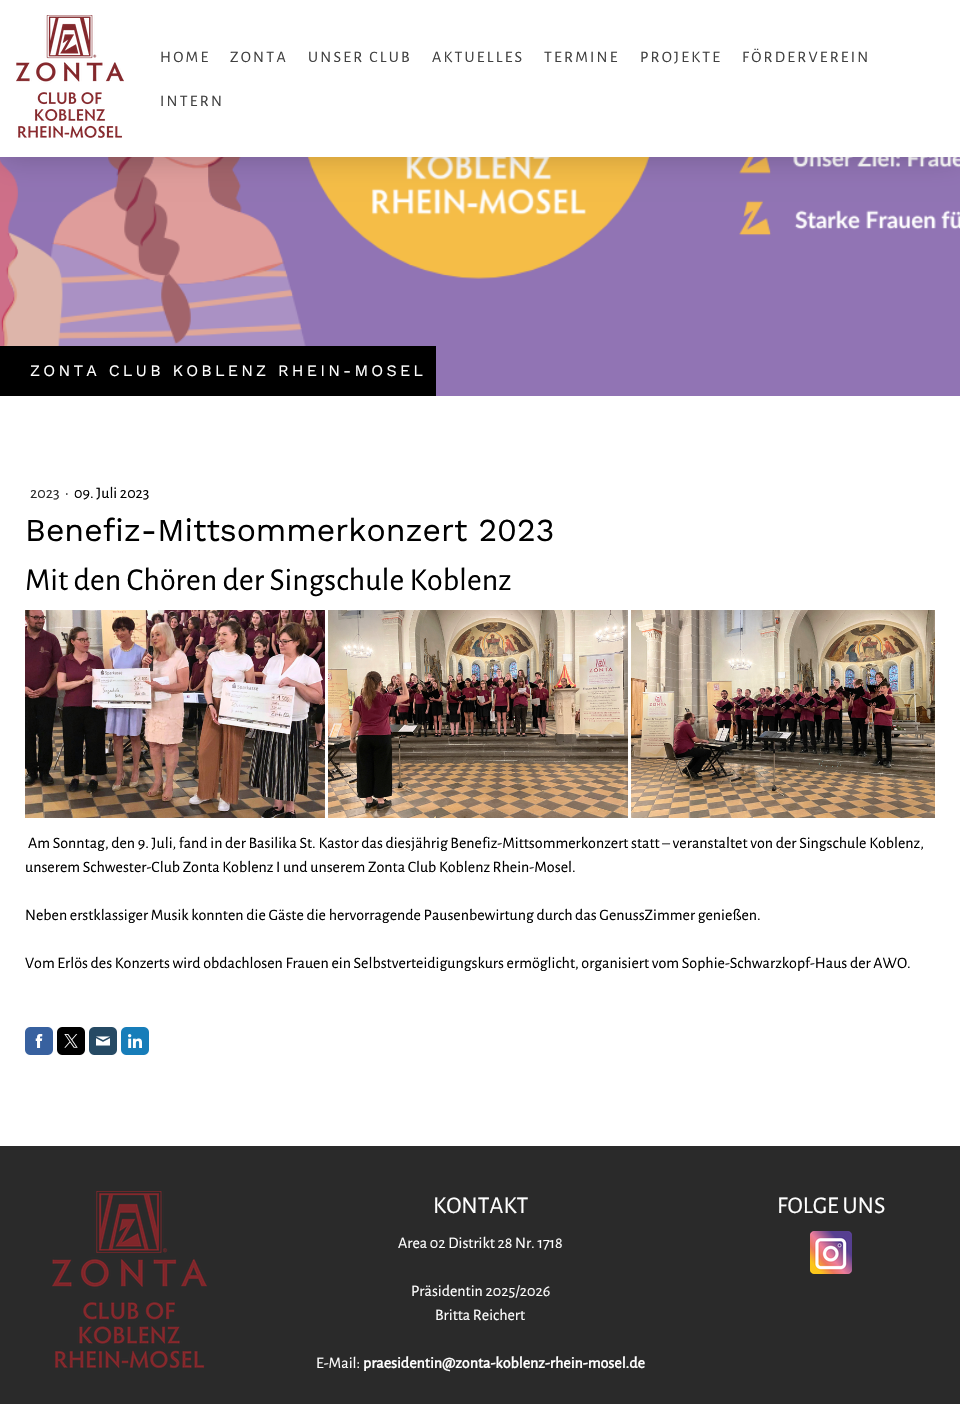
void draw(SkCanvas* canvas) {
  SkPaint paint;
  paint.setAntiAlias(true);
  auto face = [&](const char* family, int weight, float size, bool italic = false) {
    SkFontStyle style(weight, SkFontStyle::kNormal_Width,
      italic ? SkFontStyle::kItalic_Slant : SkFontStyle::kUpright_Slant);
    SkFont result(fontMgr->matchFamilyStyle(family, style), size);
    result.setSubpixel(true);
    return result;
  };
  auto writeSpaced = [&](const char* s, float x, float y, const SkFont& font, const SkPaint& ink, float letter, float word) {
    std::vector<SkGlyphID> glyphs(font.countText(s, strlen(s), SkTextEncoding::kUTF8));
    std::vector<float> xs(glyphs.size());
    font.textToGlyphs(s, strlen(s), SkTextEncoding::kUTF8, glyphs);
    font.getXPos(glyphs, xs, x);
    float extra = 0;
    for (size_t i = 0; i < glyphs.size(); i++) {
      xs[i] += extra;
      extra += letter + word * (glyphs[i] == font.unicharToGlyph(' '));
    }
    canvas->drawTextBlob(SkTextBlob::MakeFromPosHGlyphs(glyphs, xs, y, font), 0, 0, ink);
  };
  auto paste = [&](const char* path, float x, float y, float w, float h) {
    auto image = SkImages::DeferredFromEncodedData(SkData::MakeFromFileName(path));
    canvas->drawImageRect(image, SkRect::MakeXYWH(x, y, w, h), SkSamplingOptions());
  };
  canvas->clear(0xffffffff);
  paste("img/2.png", 0, 157, 960, 239);
  paint.setColor(0x33000000);
  paint.setMaskFilter(SkMaskFilter::MakeBlur(kNormal_SkBlurStyle, 15));
  canvas->drawRect(SkRect::MakeXYWH(0, 0, 960, 157), paint);
  paint.setMaskFilter(nullptr);
  paint.setColor(0xffffffff);
  canvas->drawRect(SkRect::MakeXYWH(0, 0, 960, 157), paint);
  paste("img/1.png", 16, 15, 108, 123);
  paint.setColor(0xff000000);
  canvas->drawRect(SkRect::MakeXYWH(0, 346, 436, 50), paint);
  paste("img/3.png", 25, 610, 300, 208);
  paste("img/4.png", 328, 610, 300, 208);
  paste("img/5.png", 631, 610, 304, 208);
  paste("img/6.png", 25, 1027, 28, 28);
  paste("img/7.png", 35, 1034, 8, 14);
  paste("img/8.png", 57, 1027, 28, 28);
  paste("img/9.png", 64, 1034, 14, 14);
  paste("img/10.png", 89, 1027, 28, 28);
  paste("img/11.png", 96, 1036, 14, 10);
  paste("img/12.png", 121, 1027, 28, 28);
  paste("img/13.png", 128, 1034, 14, 14);
  paint.setColor(0xff2a2a2a);
  canvas->drawRect(SkRect::MakeXYWH(0, 1146, 960, 258), paint);
  paste("img/14.png", 52, 1191, 155, 178);
  paste("img/15.png", 810, 1231, 42, 43);
  auto f0 = face("Alegreya Sans", 400, 16);
  paint.setColor(0xff404040);
  {
    const struct { const char* s; float x, y; } items[] = {
      {"HOME", 160, 62},
      {"ZONTA", 230, 62},
      {"UNSER CLUB", 308, 62},
      {"AKTUELLES", 432, 62},
      {"TERMINE", 544, 62},
      {"PROJEKTE", 640, 62},
      {"FÖRDERVEREIN", 742, 62},
      {"INTERN", 160, 106},
    };
    for (auto [s, x, y] : items) {
      writeSpaced(s, x, y, f0, paint, 2.25f, 0);
    }
  }
  auto f1 = face("Work Sans", 400, 16);
  paint.setColor(0xffffffff);
  writeSpaced("ZONTA CLUB KOBLENZ RHEIN-MOSEL", 30, 376, f1, paint, 3.2f, 0);
  paint.setColor(0xff2a2a2a);
  canvas->drawString("2023", 30, 498, f0, paint);
  paint.setColor(0xff000000);
  canvas->drawString("·", 65, 498, f0, paint);
  canvas->drawString("09. Juli 2023", 74, 498, f0, paint);
  auto f2 = face("Work Sans", 400, 32);
  canvas->drawString("Benefiz-Mittsommerkonzert 2023", 25, 541, f2, paint);
  auto f3 = face("Alegreya Sans", 400, 32);
  canvas->drawString("Mit den Chören der Singschule Koblenz", 25, 590, f3, paint);
  {
    const struct { const char* s; float x, y; } items[] = {
      {"Am Sonntag, den 9. Juli, fand in der Basilika St. Kastor das diesjährig Benefiz-Mittsommerkonzert statt – veranstaltet von der Singschule Koblenz,", 28, 848},
      {"unserem Schwester-Club Zonta Koblenz I und unserem Zonta Club Koblenz Rhein-Mosel.", 25, 872},
      {"Neben erstklassiger Musik konnten die Gäste die hervorragende Pausenbewirtung durch das GenussZimmer genießen.", 25, 920},
      {"Vom Erlös des Konzerts wird obdachlosen Frauen ein Selbstverteidigungskurs ermöglicht, organisiert vom Sophie-Schwarzkopf-Haus der AWO.", 25, 968},
    };
    for (auto [s, x, y] : items) {
      canvas->drawString(s, x, y, f0, paint);
    }
  }
  auto f4 = face("Alegreya Sans", 400, 24);
  paint.setColor(0xffffffff);
  canvas->drawString("KONTAKT", 433, 1213, f4, paint);
  {
    const struct { const char* s; float x, y; } items[] = {
      {"Area 02 Distrikt 28 Nr. 1718", 398, 1248},
      {"Präsidentin 2025/2026", 411, 1296},
      {"Britta Reichert", 435, 1320},
      {"E-Mail:", 316, 1368},
    };
    for (auto [s, x, y] : items) {
      canvas->drawString(s, x, y, f0, paint);
    }
  }
  auto f5 = face("Alegreya Sans", 700, 16);
  canvas->drawString("praesidentin@zonta-koblenz-rhein-mosel.de", 363, 1368, f5, paint);
  canvas->drawString("FOLGE UNS", 777, 1213, f4, paint);
}
